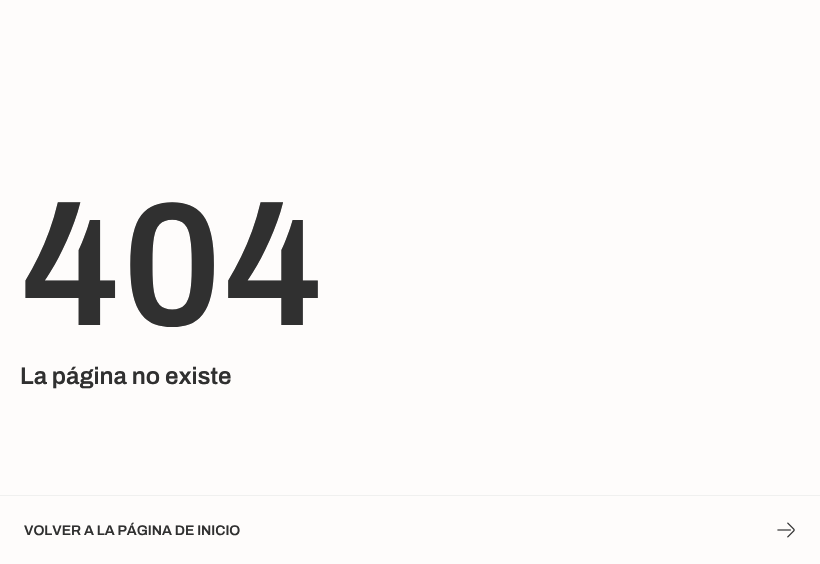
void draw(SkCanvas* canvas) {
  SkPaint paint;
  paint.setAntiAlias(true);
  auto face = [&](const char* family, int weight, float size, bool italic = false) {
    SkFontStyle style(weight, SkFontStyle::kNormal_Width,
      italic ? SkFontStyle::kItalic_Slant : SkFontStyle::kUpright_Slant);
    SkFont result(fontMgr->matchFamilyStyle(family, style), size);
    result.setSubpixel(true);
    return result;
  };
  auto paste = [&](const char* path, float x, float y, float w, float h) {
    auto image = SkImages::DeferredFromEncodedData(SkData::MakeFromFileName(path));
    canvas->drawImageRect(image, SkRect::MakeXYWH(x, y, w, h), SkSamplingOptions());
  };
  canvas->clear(0xfffefcfb);
  paint.setColor(0xfff0f0ef);
  canvas->drawRect(SkRect::MakeXYWH(0, 495, 820, 1), paint);
  paste("img/1.png", 777, 522, 18, 16);
  auto f0 = face("Archivo", 600, 176);
  paint.setColor(0xff303030);
  canvas->drawString("404", 20, 325, f0, paint);
  auto f1 = face("Archivo", 600, 24);
  canvas->drawString("La página no existe", 20, 384, f1, paint);
  auto f2 = face("Archivo", 600, 14);
  canvas->drawString("VOLVER A LA PÁGINA DE INICIO", 24, 535, f2, paint);
}
